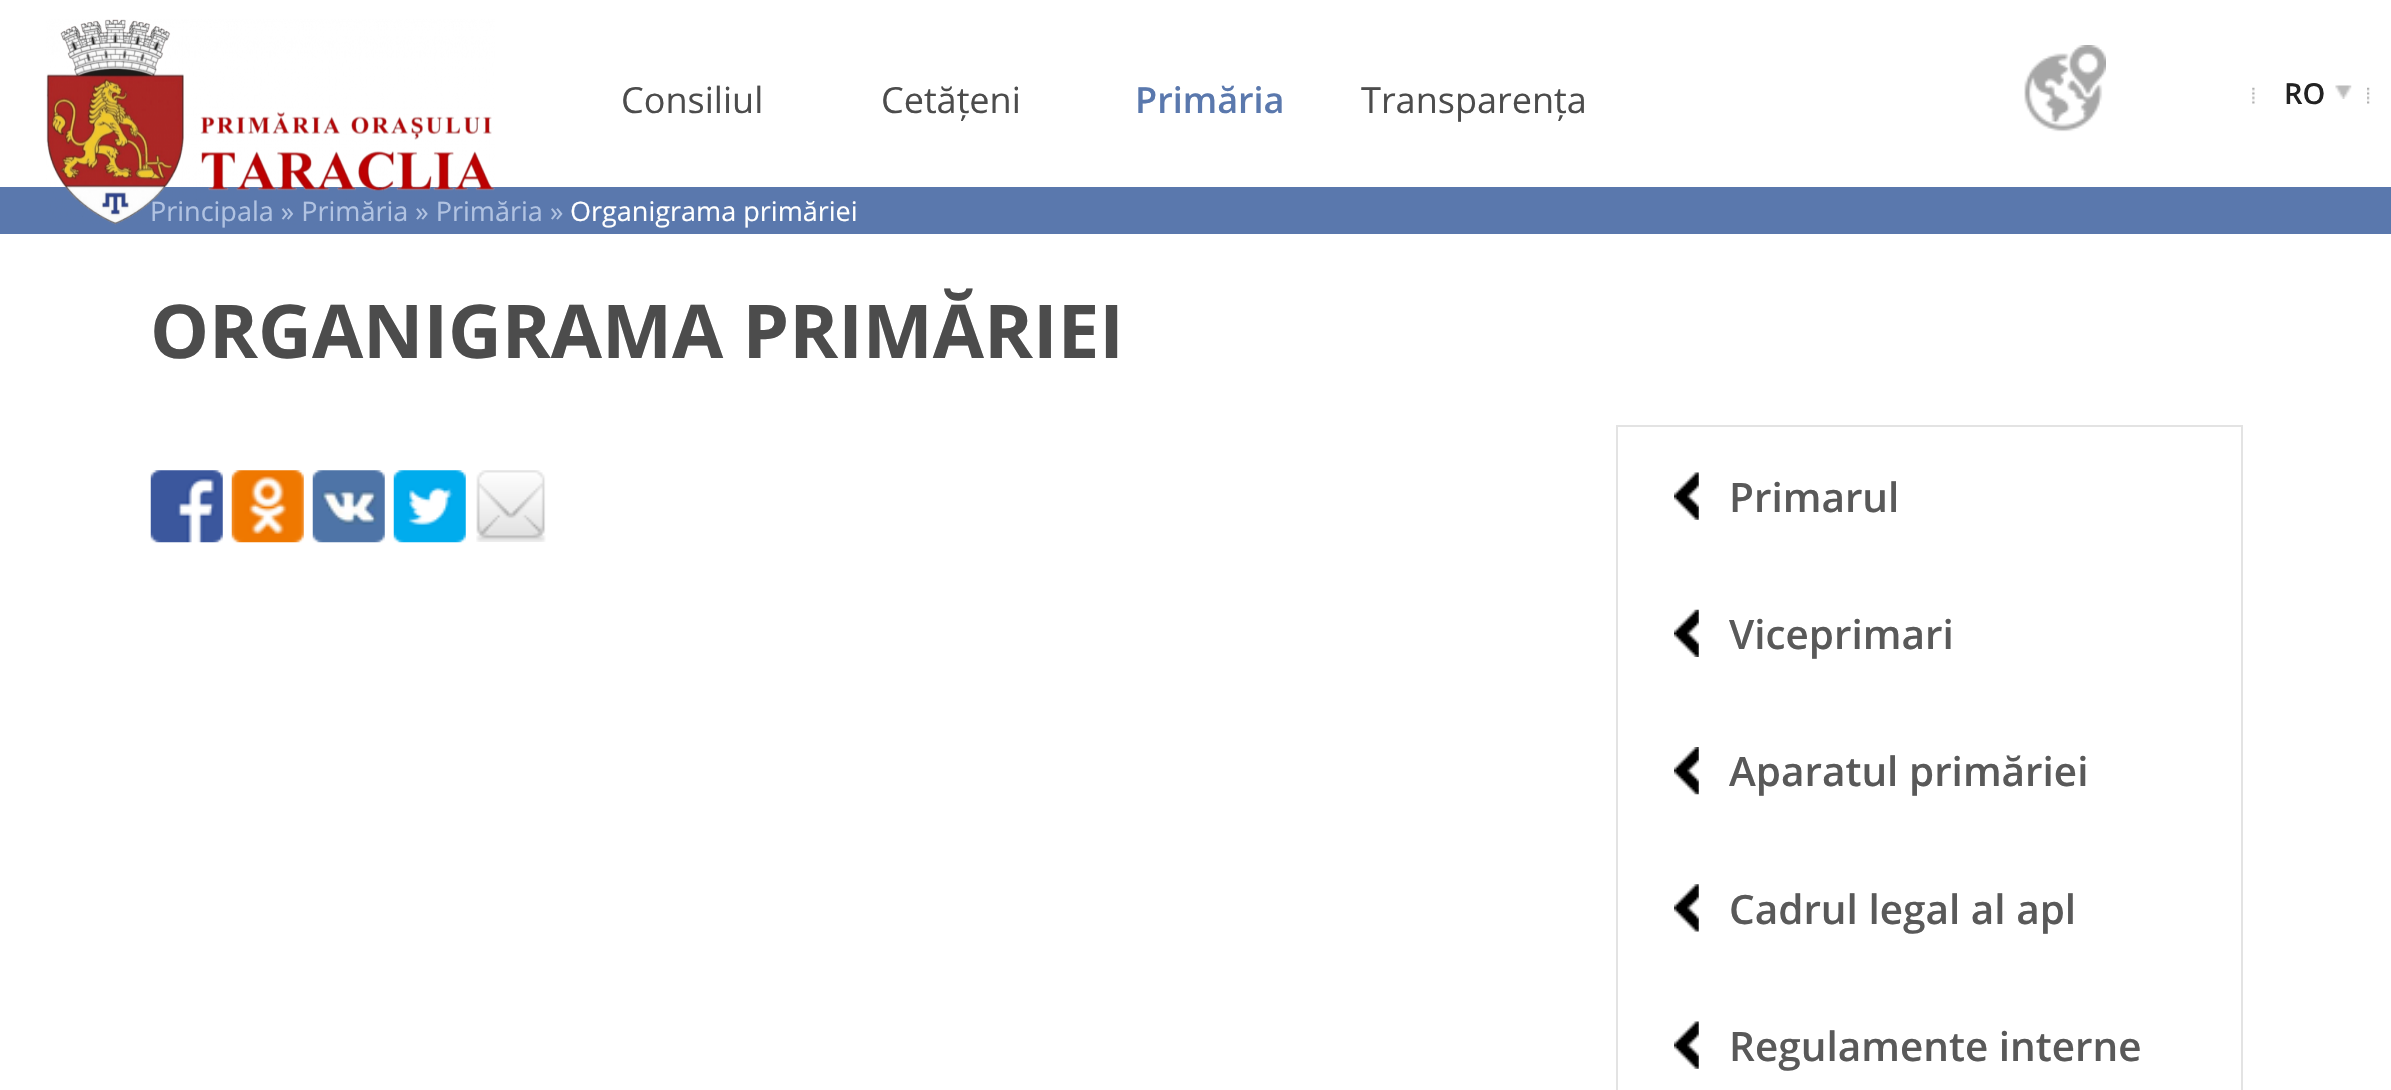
void draw(SkCanvas* canvas) {
  SkPaint paint;
  paint.setAntiAlias(true);
  auto face = [&](const char* family, int weight, float size, bool italic = false) {
    SkFontStyle style(weight, SkFontStyle::kNormal_Width,
      italic ? SkFontStyle::kItalic_Slant : SkFontStyle::kUpright_Slant);
    SkFont result(fontMgr->matchFamilyStyle(family, style), size);
    result.setSubpixel(true);
    return result;
  };
  auto paste = [&](const char* path, float x, float y, float w, float h) {
    auto image = SkImages::DeferredFromEncodedData(SkData::MakeFromFileName(path));
    canvas->drawImageRect(image, SkRect::MakeXYWH(x, y, w, h), SkSamplingOptions());
  };
  canvas->clear(0xffffffff);
  paste("img/2.png", 2024, 45, 82, 87);
  paste("img/3.png", 2252, 87, 3, 17);
  paste("img/4.png", 2335, 85, 17, 14);
  paste("img/5.png", 2367, 87, 3, 17);
  paint.setColor(0xff5a78ad);
  canvas->drawRect(SkRect::MakeXYWH(0, 187, 2391, 47), paint);
  paste("img/6.png", 150, 470, 73, 73);
  paste("img/7.png", 231, 470, 73, 73);
  paste("img/8.png", 312, 470, 73, 73);
  paste("img/9.png", 393, 470, 73, 73);
  paste("img/10.png", 476, 470, 70, 72);
  paint.setStroke(true);
  paint.setStrokeWidth(2);
  paint.setColor(0xffe3e3e3);
  canvas->drawRect(SkRect::MakeXYWH(1617, 426, 625, 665), paint);
  paste("img/11.png", 1674, 472, 25, 48);
  paste("img/12.png", 1674, 609, 25, 48);
  paste("img/13.png", 1674, 747, 25, 48);
  paste("img/14.png", 1674, 884, 25, 48);
  paste("img/11.png", 1674, 1021, 25, 48);
  auto f0 = face("Open Sans", 400, 36);
  paint.setStroke(false);
  paint.setColor(0xff4c4c4c);
  canvas->drawString("Consiliul", 621, 113, f0, paint);
  canvas->drawString("Cetățeni", 881, 113, f0, paint);
  auto f1 = face("Open Sans", 600, 36);
  paint.setColor(0xff5a78ad);
  canvas->drawString("Primăria", 1135, 113, f1, paint);
  paint.setColor(0xff4c4c4c);
  canvas->drawString("Transparența", 1361, 113, f0, paint);
  auto f2 = face("Open Sans", 600, 29);
  paint.setColor(0xff222222);
  canvas->drawString("RO", 2284, 104, f2, paint);
  auto f3 = face("Open Sans", 400, 27);
  paint.setColor(0xffb1c3e2);
  canvas->drawString("Principala » Primăria » Primăria »", 150, 221, f3, paint);
  paste("img/1.png", 46, 19, 449, 206);
  paint.setColor(0xffffffff);
  canvas->drawString("Organigrama primăriei", 570, 221, f3, paint);
  auto f4 = face("Open Sans", 700, 74.25f);
  paint.setColor(0xff4c4c4c);
  canvas->drawString("ORGANIGRAMA PRIMĂRIEI", 150, 358, f4, paint);
  auto f5 = face("Open Sans", 600, 40.5f);
  paint.setColor(0xff595959);
  {
    const struct { const char* s; float x, y; } items[] = {
      {"Primarul", 1729, 512},
      {"Viceprimari", 1729, 649},
      {"Aparatul primăriei", 1729, 786},
      {"Cadrul legal al apl", 1729, 924},
      {"Regulamente interne", 1729, 1061},
    };
    for (auto [s, x, y] : items) {
      canvas->drawString(s, x, y, f5, paint);
    }
  }
}
